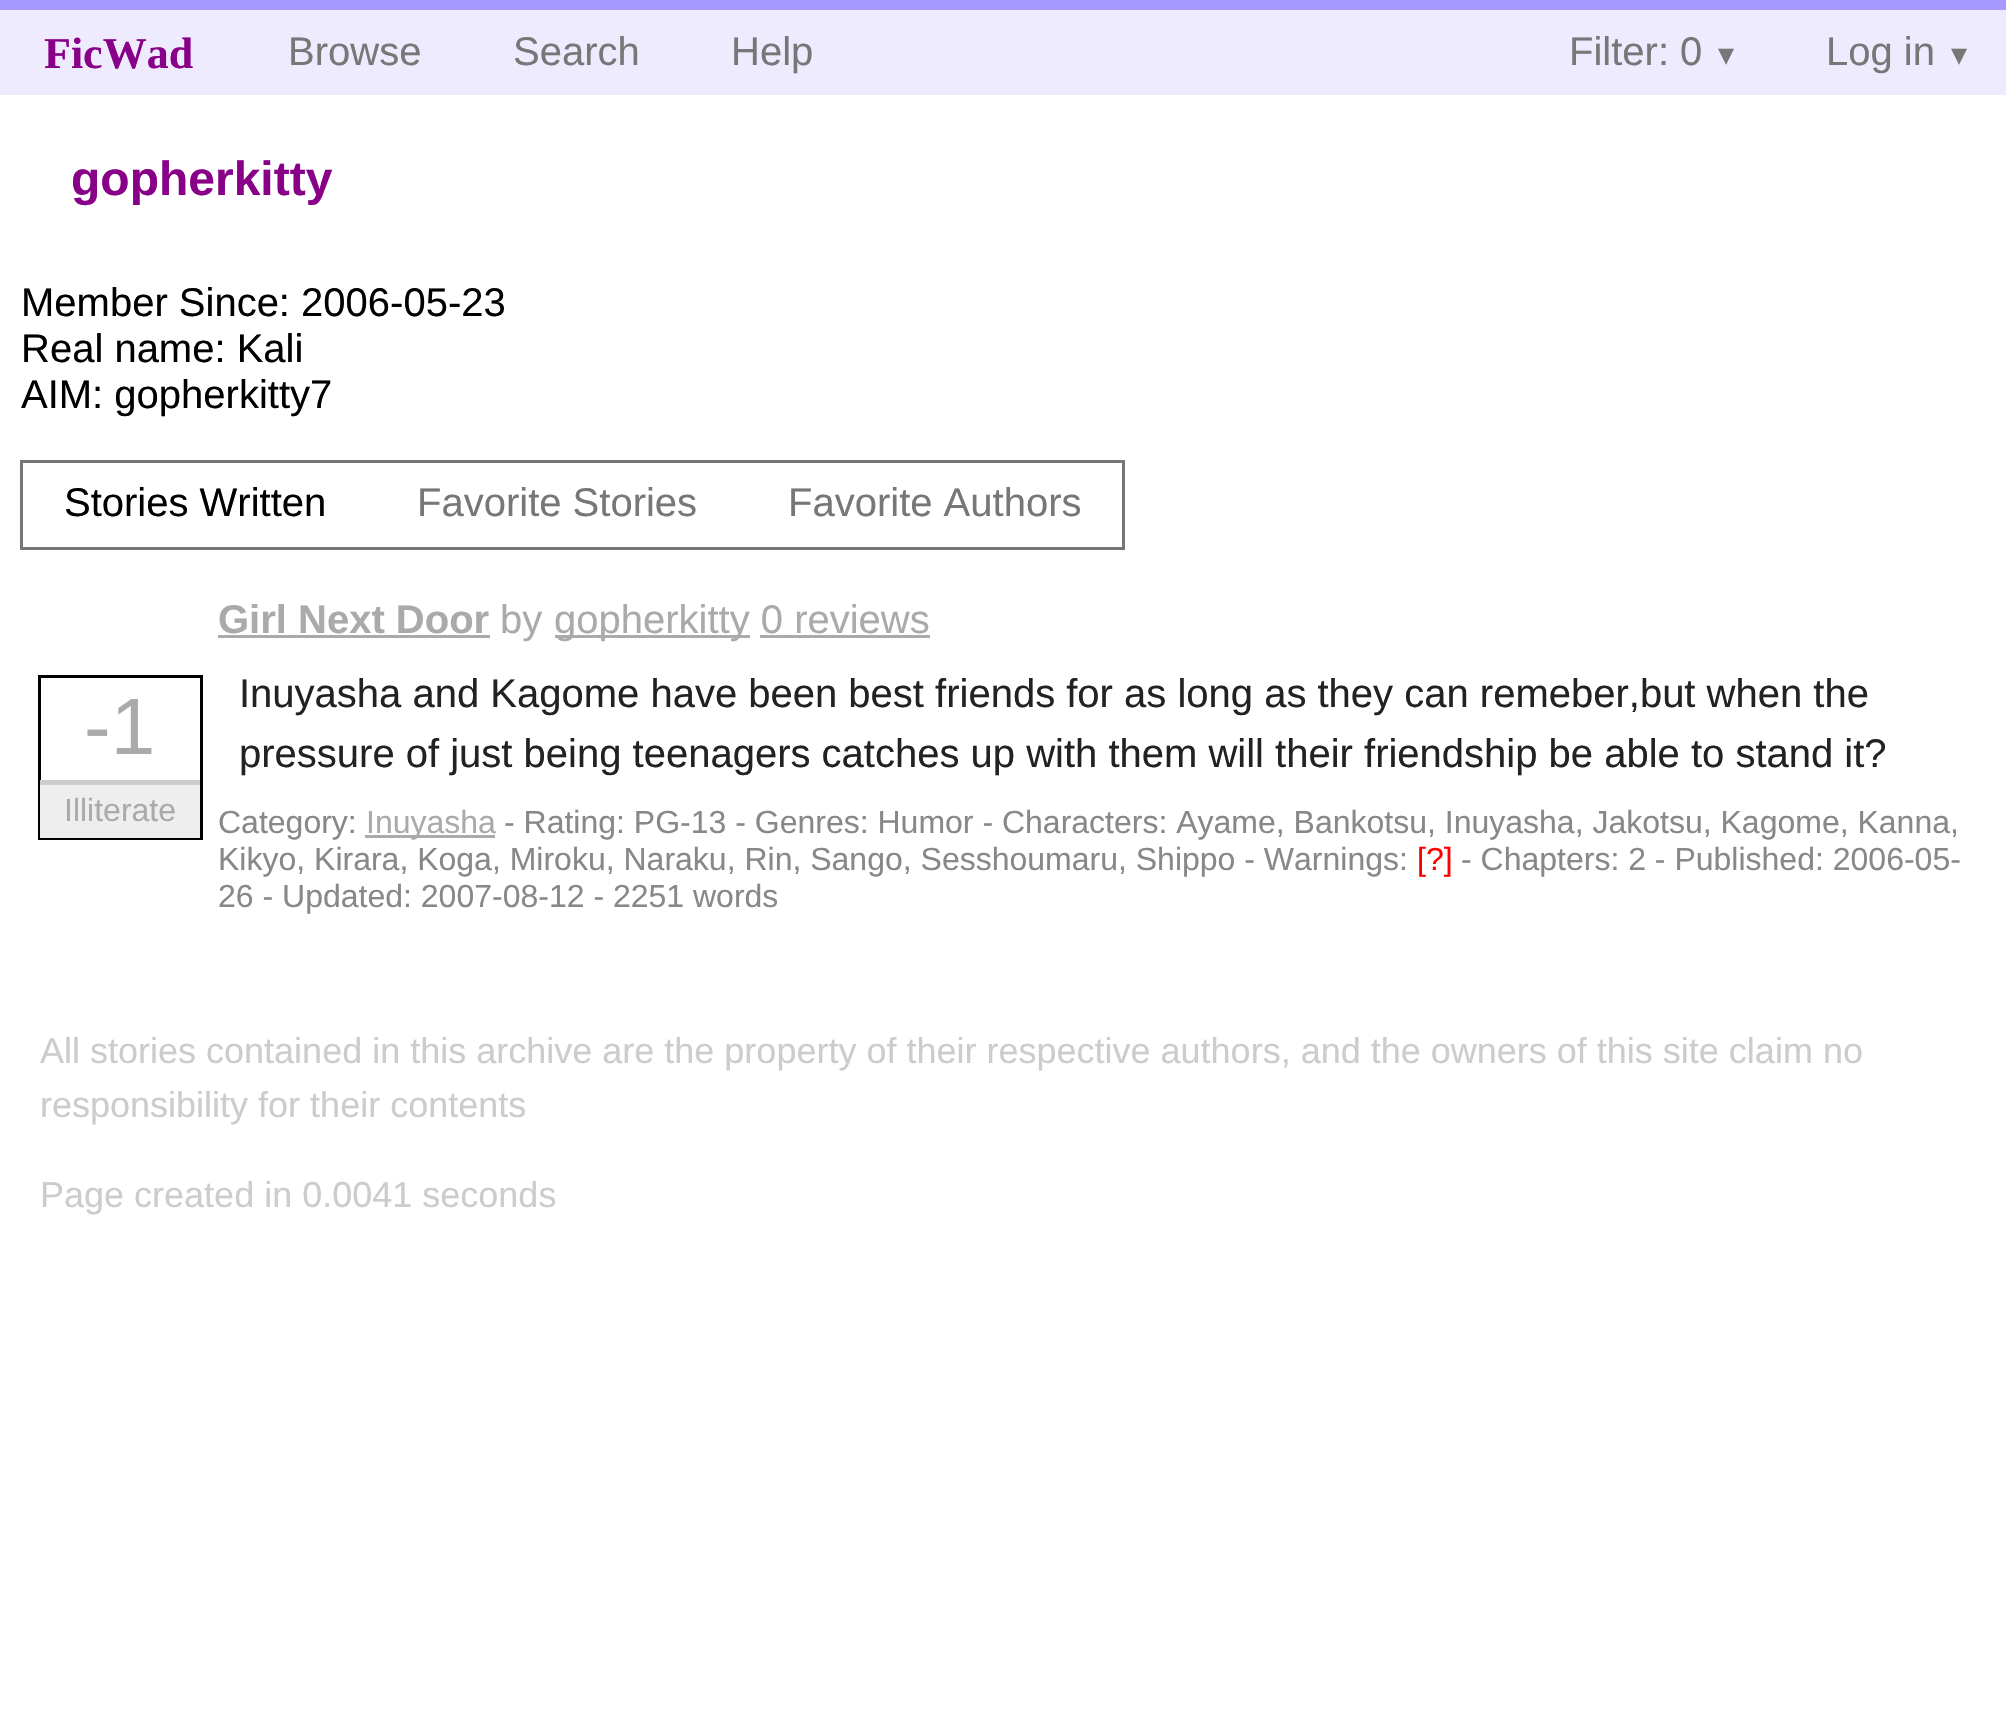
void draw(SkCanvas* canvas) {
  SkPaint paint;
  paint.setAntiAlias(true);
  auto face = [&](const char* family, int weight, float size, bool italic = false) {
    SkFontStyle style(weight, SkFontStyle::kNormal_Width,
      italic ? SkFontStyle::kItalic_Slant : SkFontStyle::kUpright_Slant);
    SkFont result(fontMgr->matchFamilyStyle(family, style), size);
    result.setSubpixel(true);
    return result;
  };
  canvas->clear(0xffffffff);
  paint.setColor(0xffeeebff);
  canvas->drawRect(SkRect::MakeXYWH(0, 10, 2006, 85), paint);
  paint.setColor(0xffa899ff);
  canvas->drawRect(SkRect::MakeXYWH(0, 0, 2006, 10), paint);
  paint.setStroke(true);
  paint.setStrokeWidth(3);
  paint.setColor(0xff777777);
  canvas->drawRect(SkRect::MakeXYWH(21.5f, 461.5f, 1102, 87), paint);
  paint.setStroke(false);
  {
    const struct { float x, y, w, h; SkColor color; } items[] = {
      {218, 635, 272, 3, 0xffaaaaaa},
      {555, 635, 195, 3, 0xffaaaaaa},
      {760, 635, 170, 3, 0xffaaaaaa},
    };
    for (auto [x, y, w, h, color] : items) {
      paint.setColor(color);
      canvas->drawRect(SkRect::MakeXYWH(x, y, w, h), paint);
    }
  }
  paint.setStroke(true);
  paint.setColor(0xff000000);
  canvas->drawRect(SkRect::MakeXYWH(39.5f, 676.5f, 162, 162), paint);
  paint.setStroke(false);
  {
    const struct { float x, y, w, h; SkColor color; } items[] = {
      {40, 785, 160, 53, 0xffeeeeee},
      {40, 780, 160, 5, 0xffcccccc},
      {365, 835, 130, 3, 0xffaaaaaa},
    };
    for (auto [x, y, w, h, color] : items) {
      paint.setColor(color);
      canvas->drawRect(SkRect::MakeXYWH(x, y, w, h), paint);
    }
  }
  auto f0 = face("Liberation Serif", 700, 44);
  paint.setColor(0xff880088);
  canvas->drawString("FicWad", 44, 68, f0, paint);
  auto f1 = face("Liberation Sans", 400, 40);
  paint.setColor(0xff777777);
  {
    const struct { const char* s; float x, y; } items[] = {
      {"Browse", 288, 65},
      {"Search", 513, 65},
      {"Help", 731, 65},
      {"Filter: 0", 1569, 65},
    };
    for (auto [s, x, y] : items) {
      canvas->drawString(s, x, y, f1, paint);
    }
  }
  auto f2 = face("DejaVu Sans", 400, 32);
  canvas->drawString("▾", 1718, 65, f2, paint);
  canvas->drawString("Log in", 1826, 65, f1, paint);
  canvas->drawString("▾", 1951, 65, f2, paint);
  auto f3 = face("Liberation Sans", 700, 48);
  paint.setColor(0xff880088);
  canvas->drawString("gopherkitty", 71, 195, f3, paint);
  paint.setColor(0xff000000);
  {
    const struct { const char* s; float x, y; } items[] = {
      {"Member Since: 2006-05-23", 21, 316},
      {"Real name: Kali", 21, 362},
      {"AIM: gopherkitty7", 21, 408},
      {"Stories Written", 64, 516},
    };
    for (auto [s, x, y] : items) {
      canvas->drawString(s, x, y, f1, paint);
    }
  }
  paint.setColor(0xff777777);
  canvas->drawString("Favorite Stories", 417, 516, f1, paint);
  canvas->drawString("Favorite Authors", 788, 516, f1, paint);
  auto f4 = face("Liberation Sans", 700, 40);
  paint.setColor(0xffaaaaaa);
  canvas->drawString("Girl Next Door", 218, 633, f4, paint);
  canvas->drawString("by", 500, 633, f1, paint);
  canvas->drawString("gopherkitty 0 reviews", 554, 633, f1, paint);
  auto f5 = face("Liberation Sans", 400, 80);
  canvas->drawString("-1", 84, 754, f5, paint);
  auto f6 = face("Liberation Sans", 400, 32);
  canvas->drawString("Illiterate", 64, 821, f6, paint);
  paint.setColor(0xff222222);
  canvas->drawString("Inuyasha and Kagome have been best friends for as long as they can remeber,but when the", 239, 707, f1, paint);
  canvas->drawString("pressure of just being teenagers catches up with them will their friendship be able to stand it?", 239, 767, f1, paint);
  paint.setColor(0xff888888);
  canvas->drawString("Category:", 218, 833, f6, paint);
  paint.setColor(0xffaaaaaa);
  canvas->drawString("Inuyasha", 366, 833, f6, paint);
  paint.setColor(0xff888888);
  canvas->drawString("- Rating: PG-13 - Genres: Humor - Characters: Ayame, Bankotsu, Inuyasha, Jakotsu, Kagome, Kanna,", 504, 833, f6, paint);
  canvas->drawString("Kikyo, Kirara, Koga, Miroku, Naraku, Rin, Sango, Sesshoumaru, Shippo - Warnings:", 218, 870, f6, paint);
  paint.setColor(0xffff0000);
  canvas->drawString("[?]", 1417, 870, f6, paint);
  paint.setColor(0xff888888);
  canvas->drawString("- Chapters: 2 - Published: 2006-05-", 1461, 870, f6, paint);
  canvas->drawString("26 - Updated: 2007-08-12 - 2251 words", 218, 907, f6, paint);
  auto f7 = face("Liberation Sans", 400, 36);
  paint.setColor(0xffcccccc);
  {
    const struct { const char* s; float x, y; } items[] = {
      {"All stories contained in this archive are the property of their respective authors, and the owners of this site claim no", 40, 1063},
      {"responsibility for their contents", 40, 1117},
      {"Page created in 0.0041 seconds", 40, 1207},
    };
    for (auto [s, x, y] : items) {
      canvas->drawString(s, x, y, f7, paint);
    }
  }
}
